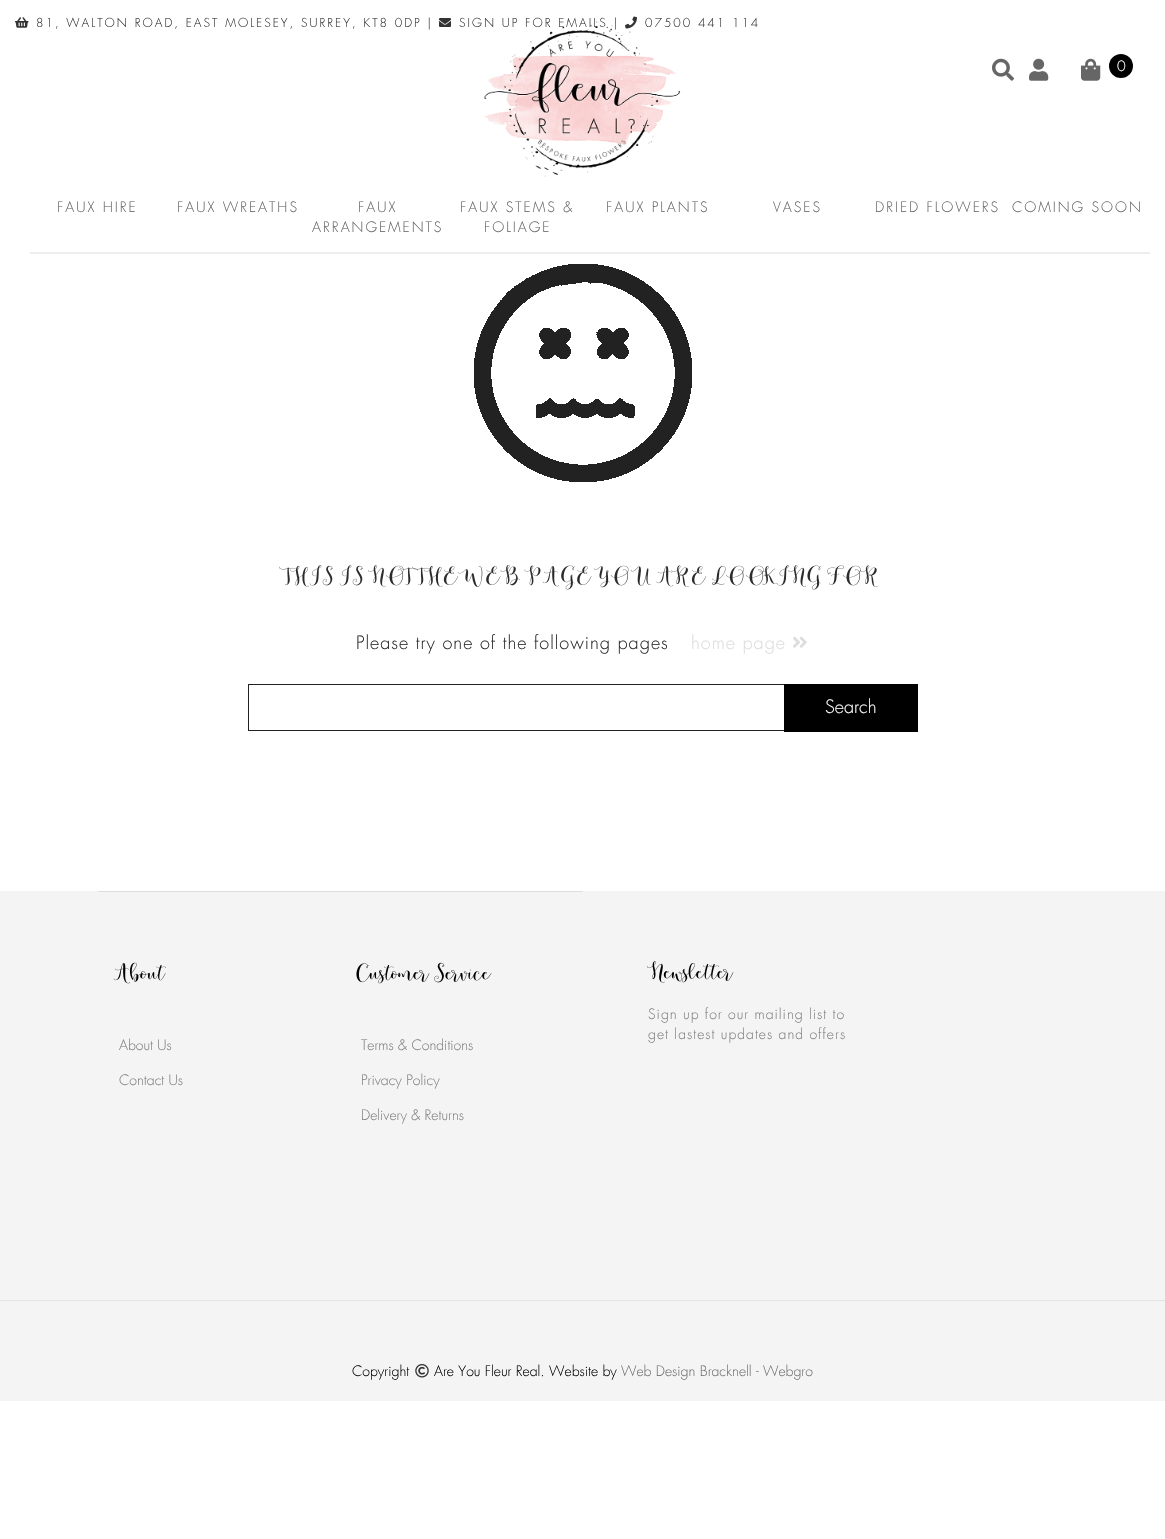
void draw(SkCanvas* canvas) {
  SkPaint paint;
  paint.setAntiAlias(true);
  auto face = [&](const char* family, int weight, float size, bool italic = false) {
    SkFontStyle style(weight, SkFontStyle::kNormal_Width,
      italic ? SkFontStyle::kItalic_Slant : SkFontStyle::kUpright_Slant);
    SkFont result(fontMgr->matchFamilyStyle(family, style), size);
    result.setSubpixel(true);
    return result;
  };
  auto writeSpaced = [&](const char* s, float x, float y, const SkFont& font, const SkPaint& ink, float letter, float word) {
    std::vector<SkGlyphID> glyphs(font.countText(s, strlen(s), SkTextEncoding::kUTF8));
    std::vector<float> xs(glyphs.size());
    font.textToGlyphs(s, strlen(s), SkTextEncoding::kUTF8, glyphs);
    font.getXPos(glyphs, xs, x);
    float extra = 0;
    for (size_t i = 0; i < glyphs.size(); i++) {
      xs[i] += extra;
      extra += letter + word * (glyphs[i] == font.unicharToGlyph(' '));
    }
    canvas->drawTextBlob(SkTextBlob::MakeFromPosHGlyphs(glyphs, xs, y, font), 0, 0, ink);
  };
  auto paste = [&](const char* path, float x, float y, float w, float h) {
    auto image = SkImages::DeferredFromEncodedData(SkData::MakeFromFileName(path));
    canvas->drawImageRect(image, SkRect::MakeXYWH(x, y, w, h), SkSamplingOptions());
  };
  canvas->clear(0xffffffff);
  paste("img/1.png", 15, 17, 14, 11);
  paste("img/2.png", 439, 18, 12, 9);
  paste("img/4.png", 484, 20, 197, 157);
  paste("img/3.png", 625, 16, 12, 13);
  paste("img/5.png", 992, 58, 22, 23);
  paste("img/6.png", 1029, 58, 20, 23);
  paste("img/7.png", 1081, 58, 20, 23);
  paint.setColor(0xff000000);
  canvas->drawCircle(1121, 66, 12, paint);
  paint.setColor(0xffeeeeee);
  canvas->drawRect(SkRect::MakeXYWH(30, 252, 1120, 2), paint);
  paste("img/8.png", 474, 264, 218, 218);
  paste("img/9.png", 279, 565, 599, 25);
  paste("img/10.png", 793, 636, 14, 12);
  paint.setStroke(true);
  paint.setStrokeWidth(1);
  paint.setColor(0xff222222);
  canvas->drawRect(SkRect::MakeXYWH(248.5f, 684.5f, 669, 46), paint);
  paint.setStroke(false);
  paint.setColor(0xff000000);
  canvas->drawRect(SkRect::MakeXYWH(784, 684, 134, 48), paint);
  paint.setColor(0xfff4f4f4);
  canvas->drawRect(SkRect::MakeXYWH(0, 891, 1165, 510), paint);
  paste("img/11.png", 647, 961, 87, 22);
  paint.setColor(0xffdddddd);
  canvas->drawRect(SkRect::MakeXYWH(98, 891, 485, 1), paint);
  paste("img/12.png", 113, 962, 53, 22);
  paste("img/13.png", 356, 962, 136, 22);
  paint.setColor(0xffe4e4e4);
  canvas->drawRect(SkRect::MakeXYWH(0, 1300, 1165, 1), paint);
  paste("img/14.png", 415, 1364, 14, 14);
  auto f0 = face("Futura", 300, 12);
  paint.setColor(0xff333333);
  {
    const struct { const char* s; float x, y; } items[] = {
      {"81, WALTON ROAD, EAST MOLESEY, SURREY, KT8 0DP |", 36, 27},
      {"SIGN UP FOR EMAILS |", 459, 27},
      {"07500 441 114", 645, 27},
    };
    for (auto [s, x, y] : items) {
      writeSpaced(s, x, y, f0, paint, 2, 0);
    }
  }
  auto f1 = face("Futura", 300, 14);
  paint.setColor(0xffffffff);
  canvas->drawString("0", 1117, 71, f1, paint);
  paint.setColor(0xff666666);
  {
    const struct { const char* s; float x, y; } items[] = {
      {"FAUX HIRE", 57, 212},
      {"FAUX WREATHS", 177, 212},
      {"FAUX", 358, 212},
      {"ARRANGEMENTS", 312, 232},
      {"FAUX STEMS &", 460, 212},
      {"FOLIAGE", 484, 232},
      {"FAUX PLANTS", 606, 212},
      {"VASES", 773, 212},
      {"DRIED FLOWERS", 875, 212},
      {"COMING SOON", 1012, 212},
    };
    for (auto [s, x, y] : items) {
      writeSpaced(s, x, y, f1, paint, 2, 0);
    }
  }
  auto f2 = face("Futura", 300, 18);
  paint.setColor(0xff2b2b2b);
  writeSpaced("Please try one of the following pages", 356, 649, f2, paint, 1, 0);
  paint.setColor(0xffdddddd);
  writeSpaced("home page", 691, 649, f2, paint, 1, 0);
  paint.setColor(0xffffffff);
  canvas->drawString("Search", 825, 713, f2, paint);
  paint.setColor(0xff808080);
  writeSpaced("Sign up for our mailing list to", 648, 1019, f1, paint, 1, 0);
  writeSpaced("get lastest updates and offers", 648, 1039, f1, paint, 1, 0);
  {
    const struct { const char* s; float x, y; } items[] = {
      {"About Us", 119, 1050},
      {"Contact Us", 119, 1085},
      {"Terms & Conditions", 361, 1050},
      {"Privacy Policy", 361, 1085},
      {"Delivery & Returns", 361, 1120},
    };
    for (auto [s, x, y] : items) {
      canvas->drawString(s, x, y, f1, paint);
    }
  }
  paint.setColor(0xff000000);
  canvas->drawString("Copyright", 352, 1376, f1, paint);
  canvas->drawString("Are You Fleur Real. Website by", 434, 1376, f1, paint);
  paint.setColor(0xff707070);
  canvas->drawString("Web Design Bracknell - Webgro", 621, 1376, f1, paint);
}
